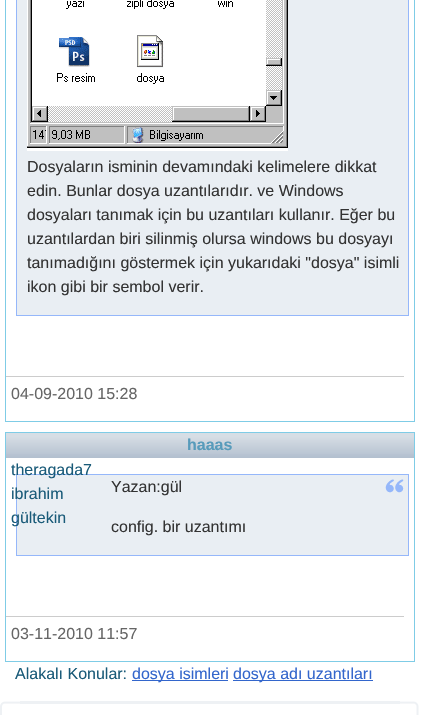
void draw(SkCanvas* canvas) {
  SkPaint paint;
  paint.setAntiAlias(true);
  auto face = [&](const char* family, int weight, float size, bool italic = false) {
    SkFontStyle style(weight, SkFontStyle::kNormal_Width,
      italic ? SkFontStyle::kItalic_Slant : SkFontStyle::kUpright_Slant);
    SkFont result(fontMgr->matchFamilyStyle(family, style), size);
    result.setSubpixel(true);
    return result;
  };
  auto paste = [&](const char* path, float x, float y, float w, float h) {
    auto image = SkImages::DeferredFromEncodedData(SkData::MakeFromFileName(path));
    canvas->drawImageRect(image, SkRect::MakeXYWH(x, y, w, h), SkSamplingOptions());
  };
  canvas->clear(0xffffffff);
  paint.setStroke(true);
  paint.setStrokeWidth(1);
  paint.setColor(0xff7fcce6);
  canvas->drawRect(SkRect::MakeXYWH(5.5f, -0.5f, 409, 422), paint);
  paint.setStroke(false);
  paint.setColor(0xffe9eef3);
  canvas->drawRect(SkRect::MakeXYWH(16.5f, -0.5f, 392, 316), paint);
  paint.setStroke(true);
  paint.setColor(0xff95b7fa);
  canvas->drawRect(SkRect::MakeXYWH(16.5f, -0.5f, 392, 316), paint);
  paste("img/1.png", 27, 0, 261, 148);
  paint.setStroke(false);
  paint.setColor(0xffffffff);
  canvas->drawRect(SkRect::MakeXYWH(27, 148, 261, 3), paint);
  paint.setColor(0xffcccccc);
  canvas->drawRect(SkRect::MakeXYWH(6, 376, 398, 1), paint);
  paint.setStroke(true);
  paint.setColor(0xff7fcce6);
  canvas->drawRect(SkRect::MakeXYWH(5.5f, 432.5f, 409, 229), paint);
  paste("img/2.png", 6, 433, 408, 25);
  paint.setStroke(false);
  paint.setColor(0xffe9eef3);
  canvas->drawRect(SkRect::MakeXYWH(17, 475, 391, 80), paint);
  paste("img/3.png", 385, 479, 19, 14);
  paint.setStroke(true);
  paint.setColor(0xff95b7fa);
  canvas->drawRect(SkRect::MakeXYWH(16.5f, 474.5f, 392, 81), paint);
  paint.setStroke(false);
  {
    const struct { float x, y, w, h; SkColor color; } items[] = {
      {6, 616, 398, 1, 0xffcccccc},
      {132, 680, 96, 1, 0xff3366cc},
      {233, 680, 140, 1, 0xff3366cc},
    };
    for (auto [x, y, w, h, color] : items) {
      paint.setColor(color);
      canvas->drawRect(SkRect::MakeXYWH(x, y, w, h), paint);
    }
  }
  paste("img/4.png", 0, 701, 20, 14);
  paste("img/5.png", 400, 701, 19, 14);
  paint.setColor(0xffeef1f4);
  canvas->drawRect(SkRect::MakeXYWH(20, 701, 380, 3), paint);
  auto f0 = face("Liberation Sans", 400, 16);
  paint.setColor(0xff333333);
  {
    const struct { const char* s; float x, y; } items[] = {
      {"Dosyaların isminin devamındaki kelimelere dikkat", 27, 172},
      {"edin. Bunlar dosya uzantılarıdır. ve Windows", 27, 196},
      {"dosyaları tanımak için bu uzantıları kullanır. Eğer bu", 27, 220},
      {"uzantılardan biri silinmiş olursa windows bu dosyayı", 27, 244},
      {"tanımadığını göstermek için yukarıdaki \"dosya\" isimli", 27, 268},
      {"ikon gibi bir sembol verir.", 27, 292},
    };
    for (auto [s, x, y] : items) {
      canvas->drawString(s, x, y, f0, paint);
    }
  }
  paint.setColor(0xff666666);
  canvas->drawString("04-09-2010 15:28", 11, 399, f0, paint);
  auto f1 = face("Liberation Sans", 700, 16);
  paint.setColor(0xff579bbb);
  canvas->drawString("haaas", 187, 450, f1, paint);
  paint.setColor(0xff1a5b79);
  {
    const struct { const char* s; float x, y; } items[] = {
      {"theragada7", 11, 475},
      {"ibrahim", 11, 499},
      {"gültekin", 11, 523},
    };
    for (auto [s, x, y] : items) {
      canvas->drawString(s, x, y, f0, paint);
    }
  }
  paint.setColor(0xff333333);
  canvas->drawString("Yazan:gül", 111, 492, f0, paint);
  canvas->drawString("config. bir uzantımı", 111, 532, f0, paint);
  paint.setColor(0xff666666);
  canvas->drawString("03-11-2010 11:57", 11, 639, f0, paint);
  paint.setColor(0xff1a5b79);
  canvas->drawString("Alakalı Konular:", 15, 679, f0, paint);
  paint.setColor(0xff3366cc);
  canvas->drawString("dosya isimleri", 132, 679, f0, paint);
  canvas->drawString("dosya adı uzantıları", 233, 679, f0, paint);
}
